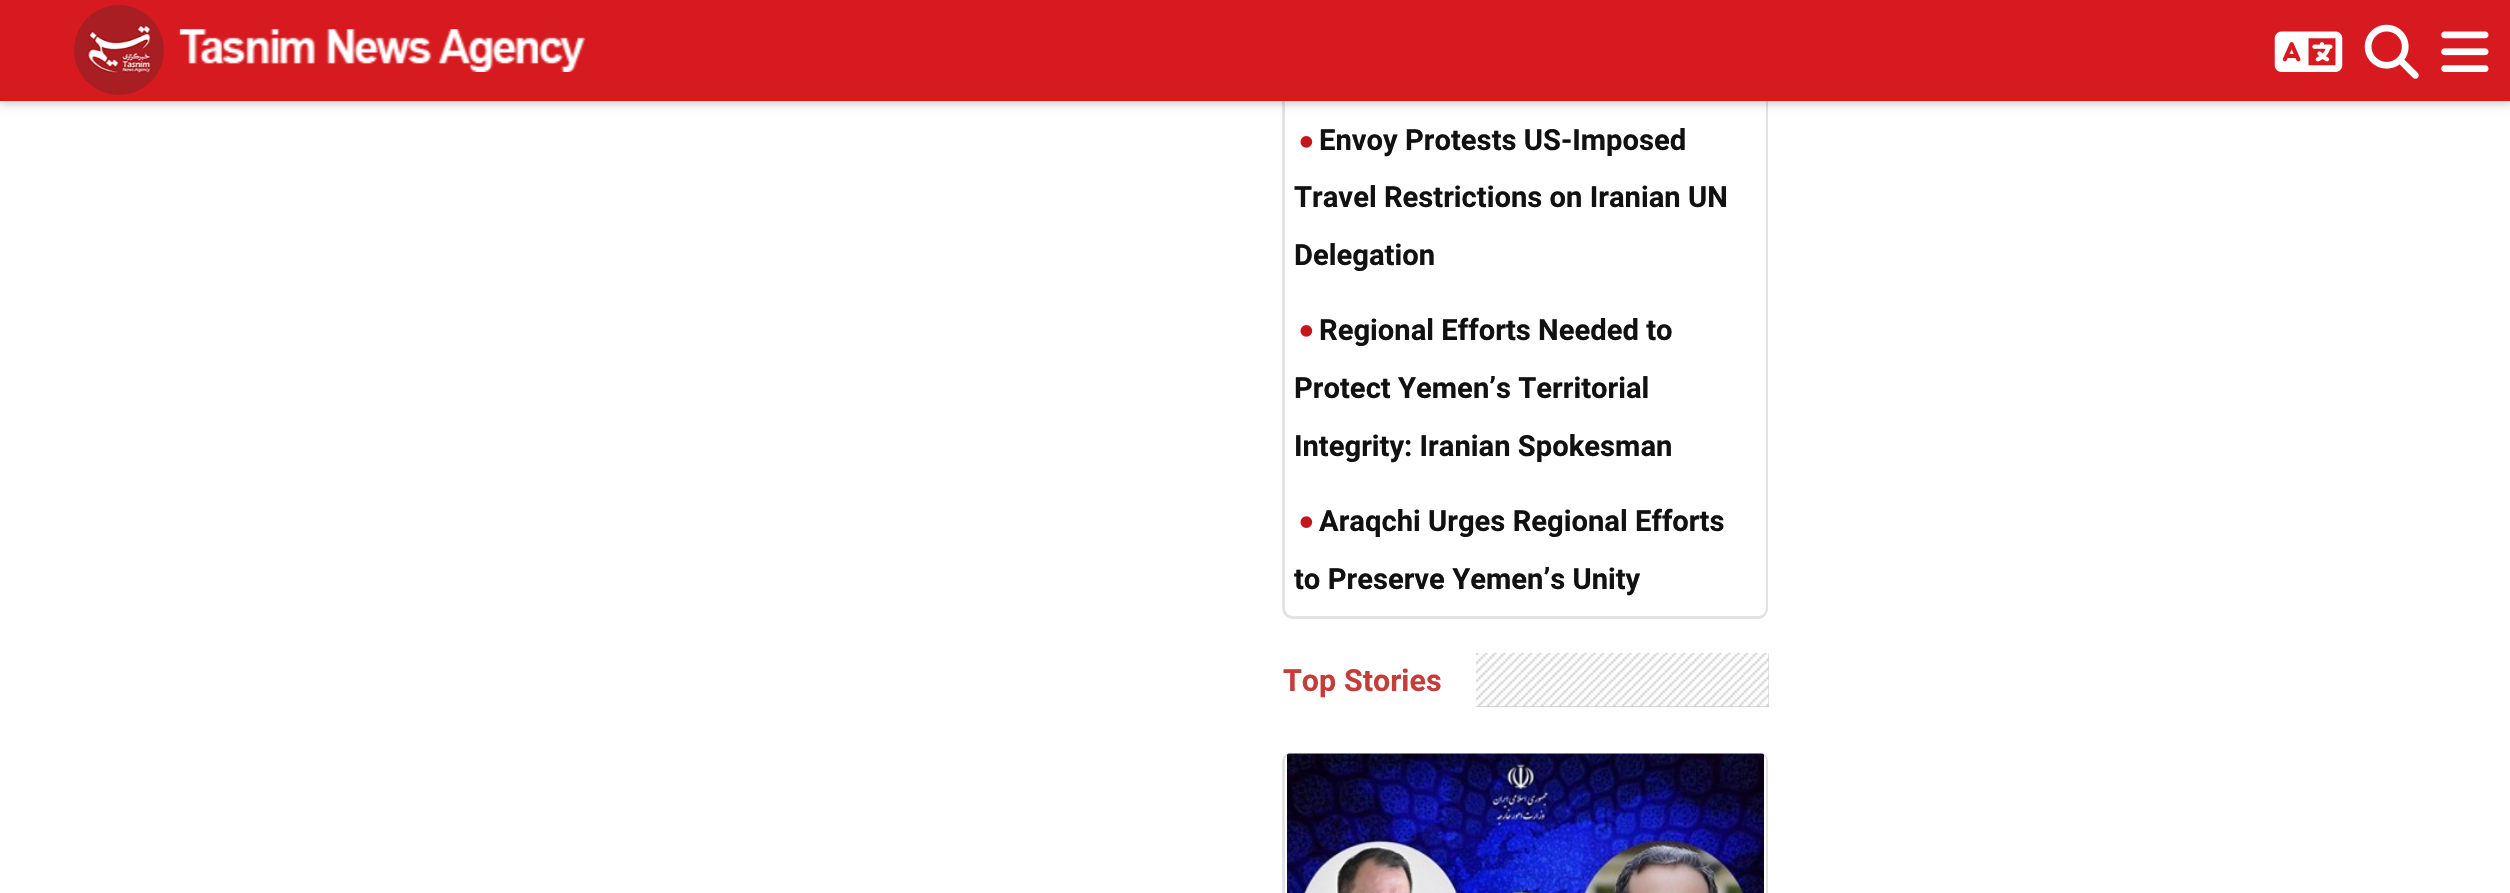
void draw(SkCanvas* canvas) {
  SkPaint paint;
  paint.setAntiAlias(true);
  auto face = [&](const char* family, int weight, float size, bool italic = false) {
    SkFontStyle style(weight, SkFontStyle::kNormal_Width,
      italic ? SkFontStyle::kItalic_Slant : SkFontStyle::kUpright_Slant);
    SkFont result(fontMgr->matchFamilyStyle(family, style), size);
    result.setSubpixel(true);
    return result;
  };
  auto paste = [&](const char* path, float x, float y, float w, float h) {
    auto image = SkImages::DeferredFromEncodedData(SkData::MakeFromFileName(path));
    canvas->drawImageRect(image, SkRect::MakeXYWH(x, y, w, h), SkSamplingOptions());
  };
  auto shape = [&](const char* data, bool evenOdd = false) {
    SkPath result = *SkParsePath::FromSVGString(data);
    if (evenOdd) result.setFillType(SkPathFillType::kEvenOdd);
    return result;
  };
  canvas->clear(0xffffffff);
  paint.setColor(0xffe3e3e3);
  canvas->drawPath(shape("M1293-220H1758C1764-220 1768-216 1768-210V608C1768 614 1764 619 1758 619H1293C1287 619 1282 614 1282 608V-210C1282-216 1287-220 1293-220ZM1293-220H1758C1762-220 1766-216 1766-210V608C1766 613 1762 616 1758 616H1293C1289 616 1285 613 1285 608V-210C1285-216 1289-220 1293-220Z", true), paint);
  paint.setColor(0x33000000);
  paint.setMaskFilter(SkMaskFilter::MakeBlur(kNormal_SkBlurStyle, 4.5f));
  canvas->drawRect(SkRect::MakeXYWH(0, 2, 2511, 102), paint);
  paint.setMaskFilter(nullptr);
  paint.setColor(0xffd71920);
  canvas->drawRect(SkRect::MakeXYWH(0, 0, 2510, 101), paint);
  paint.setColor(0xffa91e22);
  canvas->drawCircle(119, 50, 45, paint);
  paste("img/1.png", 87, 21, 69, 53);
  paste("img/2.png", 179, 29, 407, 43);
  paste("img/3.png", 2274, 31, 69, 41);
  paste("img/4.png", 2364, 24, 55, 55);
  paste("img/5.png", 2441, 31, 48, 41);
  paste("img/6.png", 1300, 136, 13, 12);
  paste("img/6.png", 1300, 325, 13, 12);
  paste("img/7.png", 1300, 516, 13, 12);
  paint.setColor(0xffcacaca);
  canvas->drawRect(SkRect::MakeXYWH(1476, 653, 293, 54), paint);
  paste("img/8.png", 1476, 653, 293, 54);
  paint.setColor(0xffe3e3e3);
  canvas->drawPath(shape("M1293 752H1758C1764 752 1768 756 1768 762V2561C1768 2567 1764 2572 1758 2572H1293C1287 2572 1282 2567 1282 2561V762C1282 756 1287 752 1293 752ZM1293 752H1758C1762 752 1766 756 1766 762V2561C1766 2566 1762 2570 1758 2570H1293C1289 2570 1285 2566 1285 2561V762C1285 756 1289 752 1293 752Z", true), paint);
  paste("img/9.png", 1287, 753, 477, 140);
  auto f0 = face("Roboto", 700, 29.2f);
  paint.setColor(0xff111111);
  {
    const struct { const char* s; float x, y; } items[] = {
      {"Envoy Protests US-Imposed", 1319, 150},
      {"Travel Restrictions on Iranian UN", 1294, 207},
      {"Delegation", 1294, 265},
      {"Regional Efforts Needed to", 1319, 340},
      {"Protect Yemen’s Territorial", 1294, 398},
      {"Integrity: Iranian Spokesman", 1294, 456},
      {"Araqchi Urges Regional Efforts", 1319, 531},
      {"to Preserve Yemen’s Unity", 1294, 589},
    };
    for (auto [s, x, y] : items) {
      canvas->drawString(s, x, y, f0, paint);
    }
  }
  auto f1 = face("Roboto", 700, 30.5f);
  paint.setColor(0xffc33e3a);
  canvas->drawString("Top Stories", 1283, 691, f1, paint);
}
